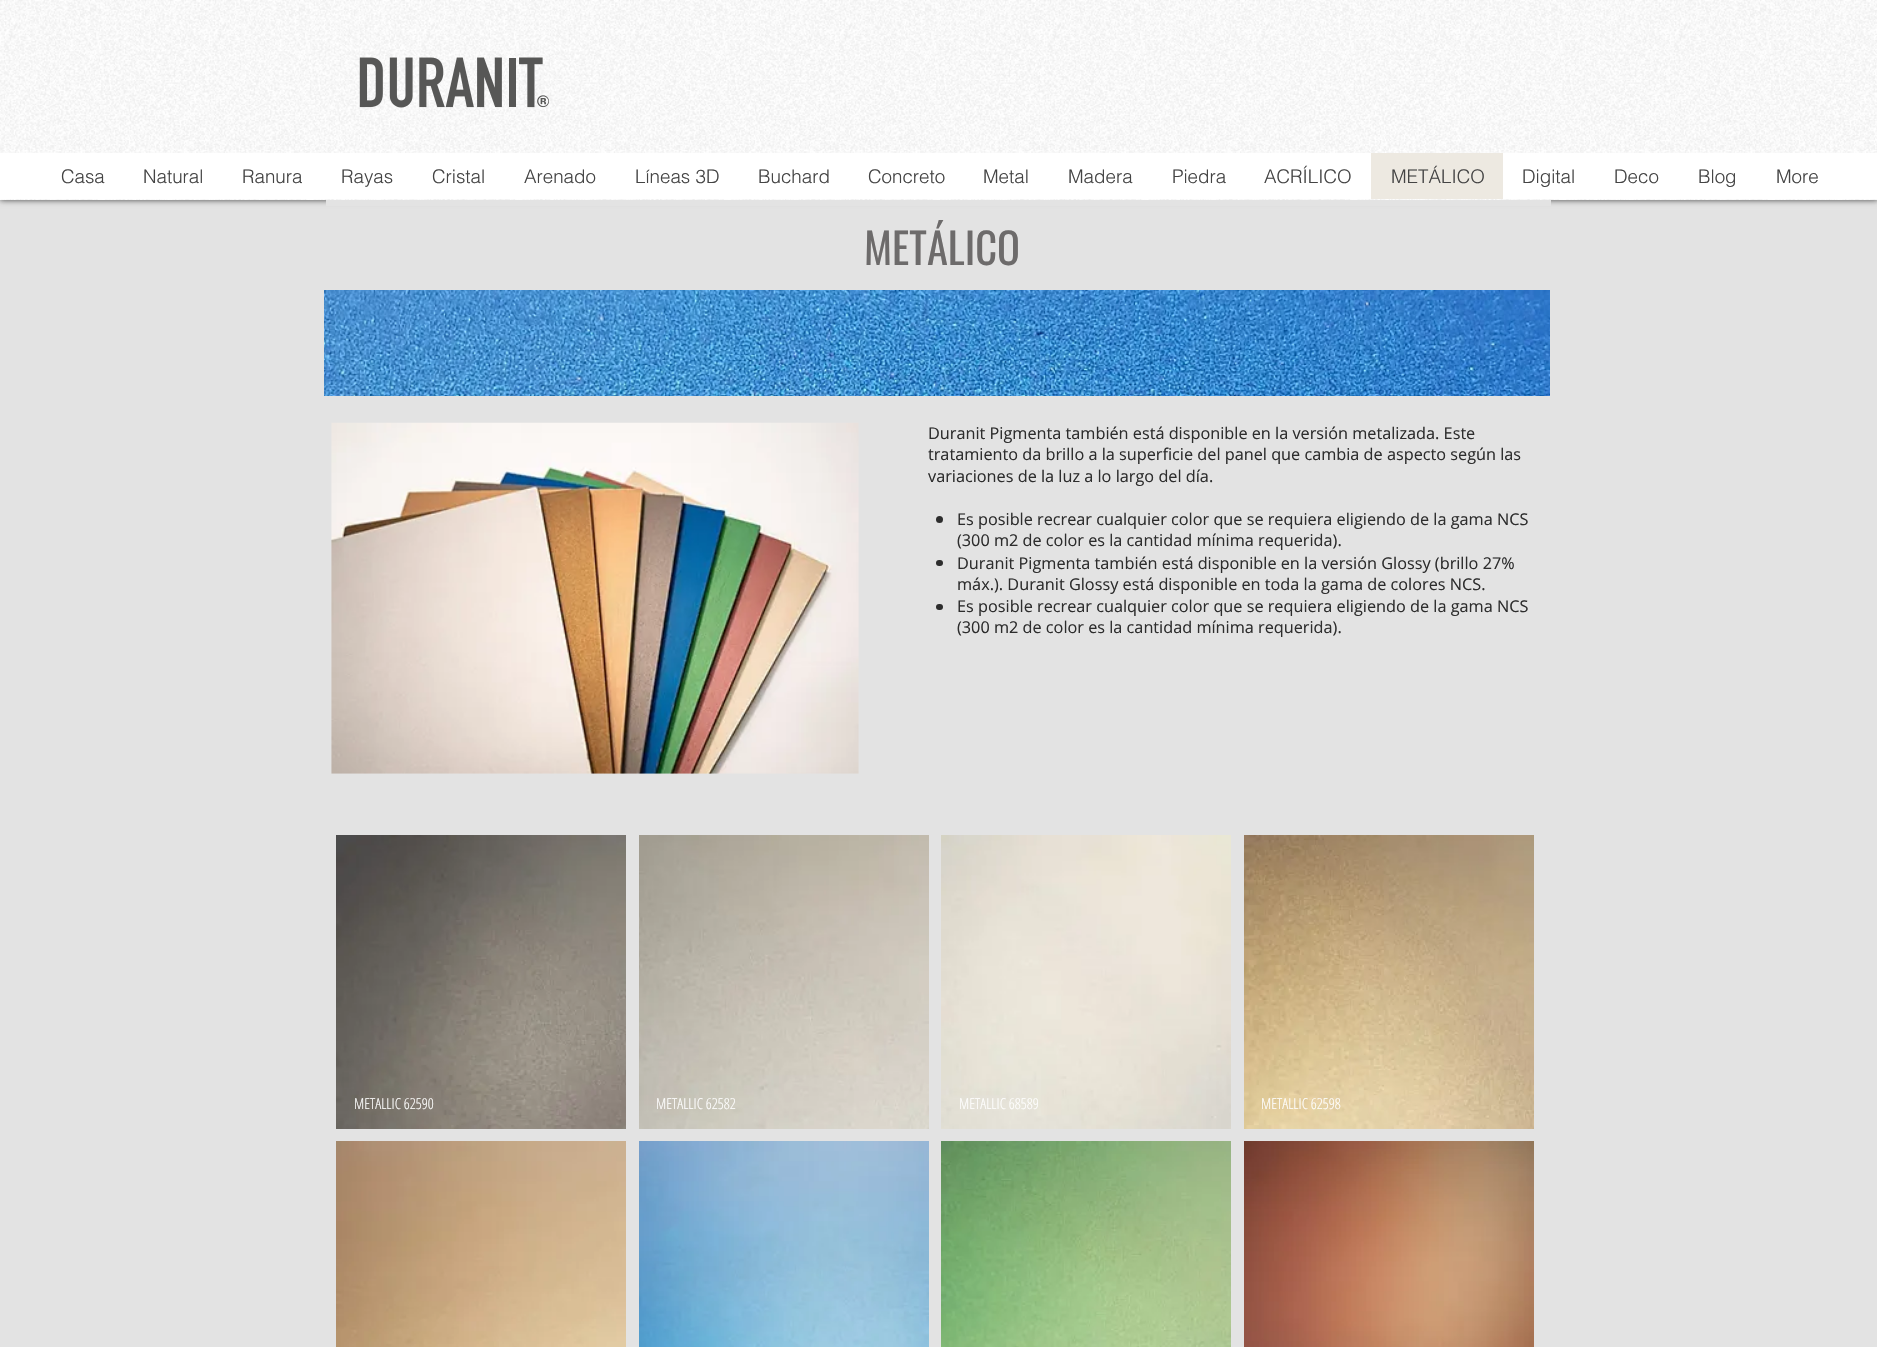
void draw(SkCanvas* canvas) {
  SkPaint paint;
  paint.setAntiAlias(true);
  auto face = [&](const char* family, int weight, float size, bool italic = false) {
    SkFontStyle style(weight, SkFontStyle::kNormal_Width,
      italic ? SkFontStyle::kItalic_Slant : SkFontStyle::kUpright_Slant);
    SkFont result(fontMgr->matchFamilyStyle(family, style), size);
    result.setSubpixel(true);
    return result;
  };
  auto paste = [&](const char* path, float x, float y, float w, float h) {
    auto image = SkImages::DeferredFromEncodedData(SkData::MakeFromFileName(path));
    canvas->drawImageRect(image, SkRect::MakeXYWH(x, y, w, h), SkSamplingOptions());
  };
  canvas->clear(0xffe3e3e3);
  paint.setColor(0xb3000000);
  paint.setMaskFilter(SkMaskFilter::MakeBlur(kNormal_SkBlurStyle, 3));
  canvas->drawRect(SkRect::MakeXYWH(0, 0, 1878, 200), paint);
  paint.setMaskFilter(nullptr);
  paint.setColor(0xffffffff);
  canvas->drawRect(SkRect::MakeXYWH(0, 0, 1877, 200), paint);
  paste("img/1.png", 0, 0, 1877, 200);
  paste("img/2.png", 359, 57, 190, 51);
  {
    const struct { float x, y, w, h; SkColor color; } items[] = {
      {0, 153, 1877, 46, 0xffffffff},
      {1371, 153, 132, 46, 0xffede9e1},
      {326, 200, 1225, 6, 0xffe3e3e3},
    };
    for (auto [x, y, w, h, color] : items) {
      paint.setColor(color);
      canvas->drawRect(SkRect::MakeXYWH(x, y, w, h), paint);
    }
  }
  paste("img/3.png", 324, 290, 1226, 106);
  paste("img/4.png", 331, 422, 528, 352);
  paint.setColor(0xff2d2d2d);
  canvas->drawCircle(939.5f, 519.5f, 3.5f, paint);
  canvas->drawRoundRect(SkRect::MakeXYWH(936, 560, 7, 6), 3, 3, paint);
  canvas->drawRoundRect(SkRect::MakeXYWH(936, 604, 7, 6), 3, 3, paint);
  paste("img/5.png", 336, 835, 290, 294);
  paste("img/6.png", 336, 1141, 290, 206);
  paste("img/7.png", 639, 835, 290, 294);
  paste("img/8.png", 639, 1141, 290, 206);
  paste("img/9.png", 941, 835, 290, 294);
  paste("img/10.png", 941, 1141, 290, 206);
  paste("img/11.png", 1244, 835, 290, 294);
  paste("img/12.png", 1244, 1141, 290, 206);
  auto f0 = face("helvetica", 300, 18.75f);
  paint.setColor(0xff444444);
  {
    const struct { const char* s; float x, y; } items[] = {
      {"Casa", 61, 183},
      {"Natural", 143, 183},
      {"Ranura", 242, 183},
      {"Rayas", 341, 183},
      {"Cristal", 432, 183},
      {"Arenado", 524, 183},
      {"Líneas 3D", 635, 183},
      {"Buchard", 758, 183},
      {"Concreto", 868, 183},
      {"Metal", 983, 183},
      {"Madera", 1068, 183},
      {"Piedra", 1172, 183},
      {"ACRÍLICO", 1264, 183},
      {"METÁLICO", 1391, 183},
      {"Digital", 1522, 183},
      {"Deco", 1614, 183},
      {"Blog", 1698, 183},
      {"More", 1776, 183},
    };
    for (auto [s, x, y] : items) {
      canvas->drawString(s, x, y, f0, paint);
    }
  }
  auto f1 = face("Oswald", 400, 42.5f);
  paint.setColor(0xff6d6b6b);
  canvas->drawString("METÁLICO", 864, 265, f1, paint);
  auto f2 = face("Open Sans", 400, 16.25f);
  paint.setColor(0xff2d2d2d);
  {
    const struct { const char* s; float x, y; } items[] = {
      {"Duranit Pigmenta también está disponible en la versión metalizada. Este", 928, 439},
      {"tratamiento da brillo a la superficie del panel que cambia de aspecto según las", 928, 460},
      {"variaciones de la luz a lo largo del día.", 928, 482},
      {"Es posible recrear cualquier color que se requiera eligiendo de la gama NCS", 957, 525},
      {"(300 m2 de color es la cantidad mínima requerida).", 957, 546},
      {"Duranit Pigmenta también está disponible en la versión Glossy (brillo 27%", 957, 569},
      {"máx.). Duranit Glossy está disponible en toda la gama de colores NCS.", 957, 590},
      {"Es posible recrear cualquier color que se requiera eligiendo de la gama NCS", 957, 612},
      {"(300 m2 de color es la cantidad mínima requerida).", 957, 633},
    };
    for (auto [s, x, y] : items) {
      canvas->drawString(s, x, y, f2, paint);
    }
  }
  auto f3 = face("Open Sans Condensed", 300, 15);
  paint.setColor(0xffffffff);
  {
    const struct { const char* s; float x, y; } items[] = {
      {"METALLIC 62590", 354, 1109},
      {"METALLIC 62582", 656, 1109},
      {"METALLIC 68589", 959, 1109},
      {"METALLIC 62598", 1261, 1109},
    };
    for (auto [s, x, y] : items) {
      canvas->drawString(s, x, y, f3, paint);
    }
  }
}
